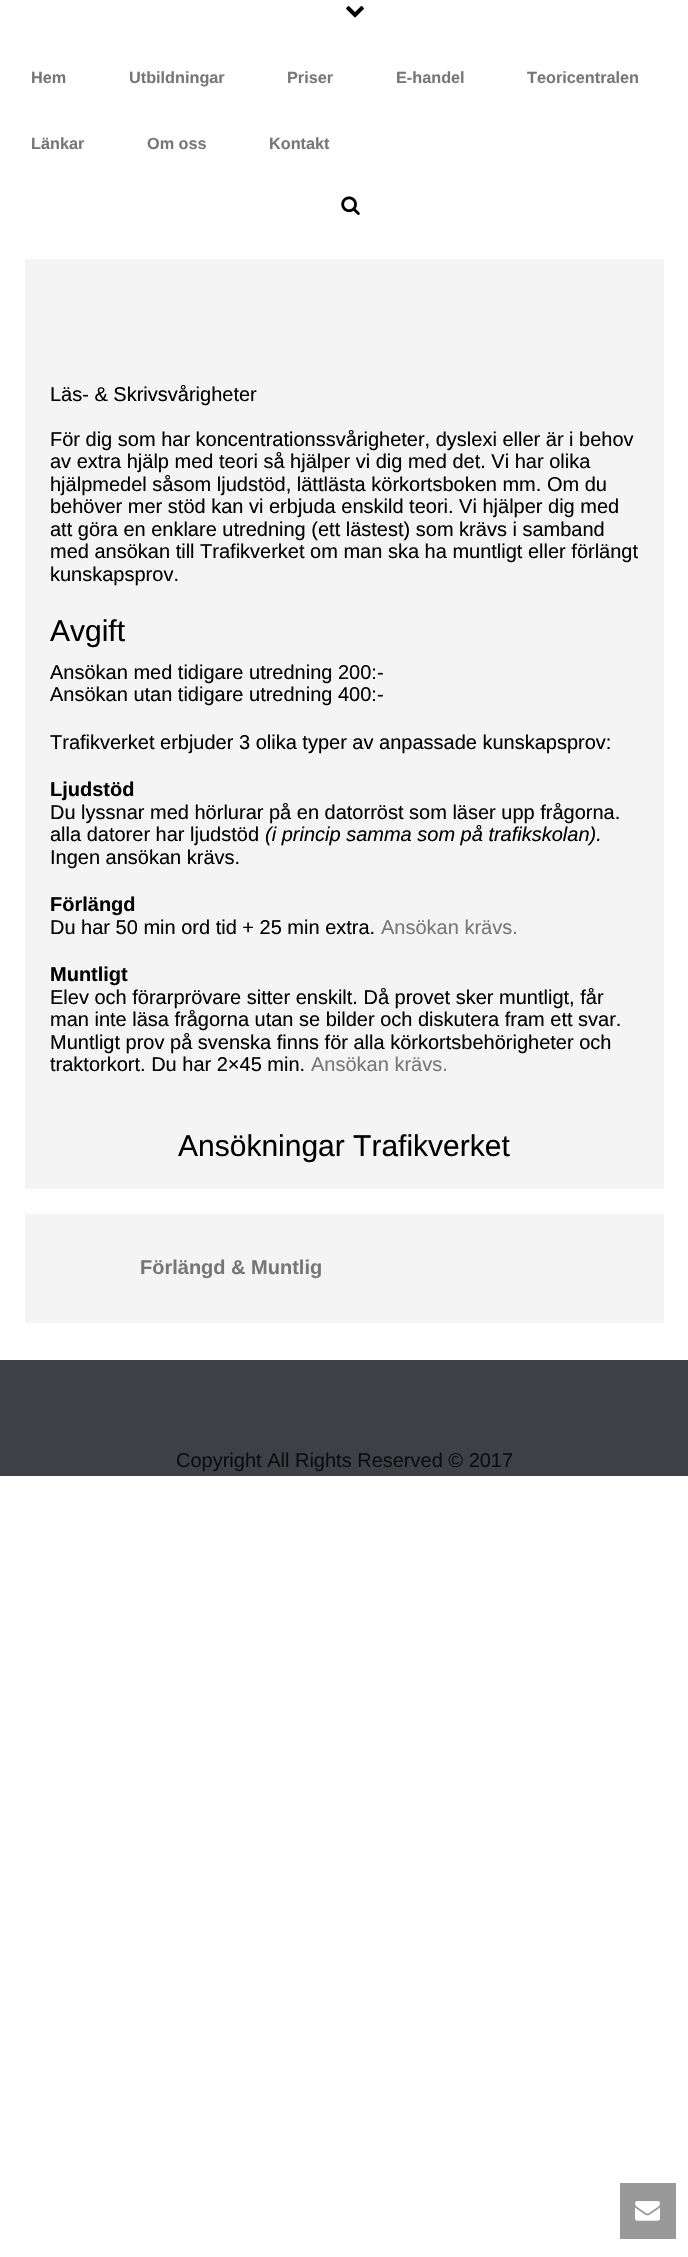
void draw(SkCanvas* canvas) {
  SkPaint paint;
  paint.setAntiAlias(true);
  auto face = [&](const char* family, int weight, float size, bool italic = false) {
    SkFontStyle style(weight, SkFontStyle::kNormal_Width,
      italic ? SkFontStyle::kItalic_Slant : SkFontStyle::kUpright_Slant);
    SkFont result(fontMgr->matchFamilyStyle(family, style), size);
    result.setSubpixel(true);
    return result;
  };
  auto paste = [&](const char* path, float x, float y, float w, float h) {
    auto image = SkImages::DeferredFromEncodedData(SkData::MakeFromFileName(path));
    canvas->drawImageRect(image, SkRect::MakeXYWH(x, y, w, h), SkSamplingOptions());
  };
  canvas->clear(0xffffffff);
  paste("img/1.png", 346, 6, 18, 12);
  paste("img/2.png", 341, 196, 19, 19);
  {
    const struct { float x, y, w, h; SkColor color; } items[] = {
      {25, 259, 639, 930, 0xfff4f4f4},
      {25, 1214, 639, 109, 0xfff4f4f4},
      {0, 1360, 688, 116, 0xff3d4045},
      {620, 2183, 56, 56, 0xff999999},
    };
    for (auto [x, y, w, h, color] : items) {
      paint.setColor(color);
      canvas->drawRect(SkRect::MakeXYWH(x, y, w, h), paint);
    }
  }
  paste("img/3.png", 635, 2201, 25, 20);
  auto f0 = face("Liberation Sans", 700, 16.25f);
  paint.setColor(0xff777777);
  {
    const struct { const char* s; float x, y; } items[] = {
      {"Hem", 31, 83},
      {"Utbildningar", 129, 83},
      {"Priser", 287, 83},
      {"E-handel", 396, 83},
      {"Teoricentralen", 527, 83},
      {"Länkar", 31, 149},
      {"Om oss", 147, 149},
      {"Kontakt", 269, 149},
    };
    for (auto [s, x, y] : items) {
      canvas->drawString(s, x, y, f0, paint);
    }
  }
  auto f1 = face("Liberation Sans", 400, 20);
  paint.setColor(0xff000000);
  {
    const struct { const char* s; float x, y; } items[] = {
      {"Läs- & Skrivsvårigheter", 50, 401},
      {"För dig som har koncentrationssvårigheter, dyslexi eller är i behov", 50, 446},
      {"av extra hjälp med teori så hjälper vi dig med det. Vi har olika", 50, 468},
      {"hjälpmedel såsom ljudstöd, lättlästa körkortsboken mm. Om du", 50, 491},
      {"behöver mer stöd kan vi erbjuda enskild teori. Vi hjälper dig med", 50, 513},
      {"att göra en enklare utredning (ett lästest) som krävs i samband", 50, 536},
      {"med ansökan till Trafikverket om man ska ha muntligt eller förlängt", 50, 558},
      {"kunskapsprov.", 50, 581},
    };
    for (auto [s, x, y] : items) {
      canvas->drawString(s, x, y, f1, paint);
    }
  }
  auto f2 = face("Liberation Sans", 400, 30);
  canvas->drawString("Avgift", 50, 641, f2, paint);
  {
    const struct { const char* s; float x, y; } items[] = {
      {"Ansökan med tidigare utredning 200:-", 50, 679},
      {"Ansökan utan tidigare utredning 400:-", 50, 701},
      {"Trafikverket erbjuder 3 olika typer av anpassade kunskapsprov:", 50, 749},
    };
    for (auto [s, x, y] : items) {
      canvas->drawString(s, x, y, f1, paint);
    }
  }
  auto f3 = face("Liberation Sans", 700, 20);
  canvas->drawString("Ljudstöd", 50, 796, f3, paint);
  canvas->drawString("Du lyssnar med hörlurar på en datorröst som läser upp frågorna.", 50, 819, f1, paint);
  canvas->drawString("alla datorer har ljudstöd", 50, 841, f1, paint);
  auto f4 = face("Liberation Sans", 400, 20, true);
  canvas->drawString("(i princip samma som på trafikskolan).", 265, 841, f4, paint);
  canvas->drawString("Ingen ansökan krävs.", 50, 864, f1, paint);
  canvas->drawString("Förlängd", 50, 911, f3, paint);
  canvas->drawString("Du har 50 min ord tid + 25 min extra.", 50, 934, f1, paint);
  paint.setColor(0xff777777);
  canvas->drawString("Ansökan krävs.", 381, 934, f1, paint);
  paint.setColor(0xff000000);
  canvas->drawString("Muntligt", 50, 981, f3, paint);
  {
    const struct { const char* s; float x, y; } items[] = {
      {"Elev och förarprövare sitter enskilt. Då provet sker muntligt, får", 50, 1004},
      {"man inte läsa frågorna utan se bilder och diskutera fram ett svar.", 50, 1026},
      {"Muntligt prov på svenska finns för alla körkortsbehörigheter och", 50, 1049},
      {"traktorkort. Du har 2×45 min.", 50, 1071},
    };
    for (auto [s, x, y] : items) {
      canvas->drawString(s, x, y, f1, paint);
    }
  }
  paint.setColor(0xff777777);
  canvas->drawString("Ansökan krävs.", 311, 1071, f1, paint);
  paint.setColor(0xff000000);
  canvas->drawString("Ansökningar Trafikverket", 178, 1156, f2, paint);
  paint.setColor(0xff777777);
  canvas->drawString("Förlängd & Muntlig", 140, 1274, f3, paint);
  paint.setColor(0xff0c0d0e);
  canvas->drawString("Copyright All Rights Reserved © 2017", 176, 1467, f1, paint);
}
